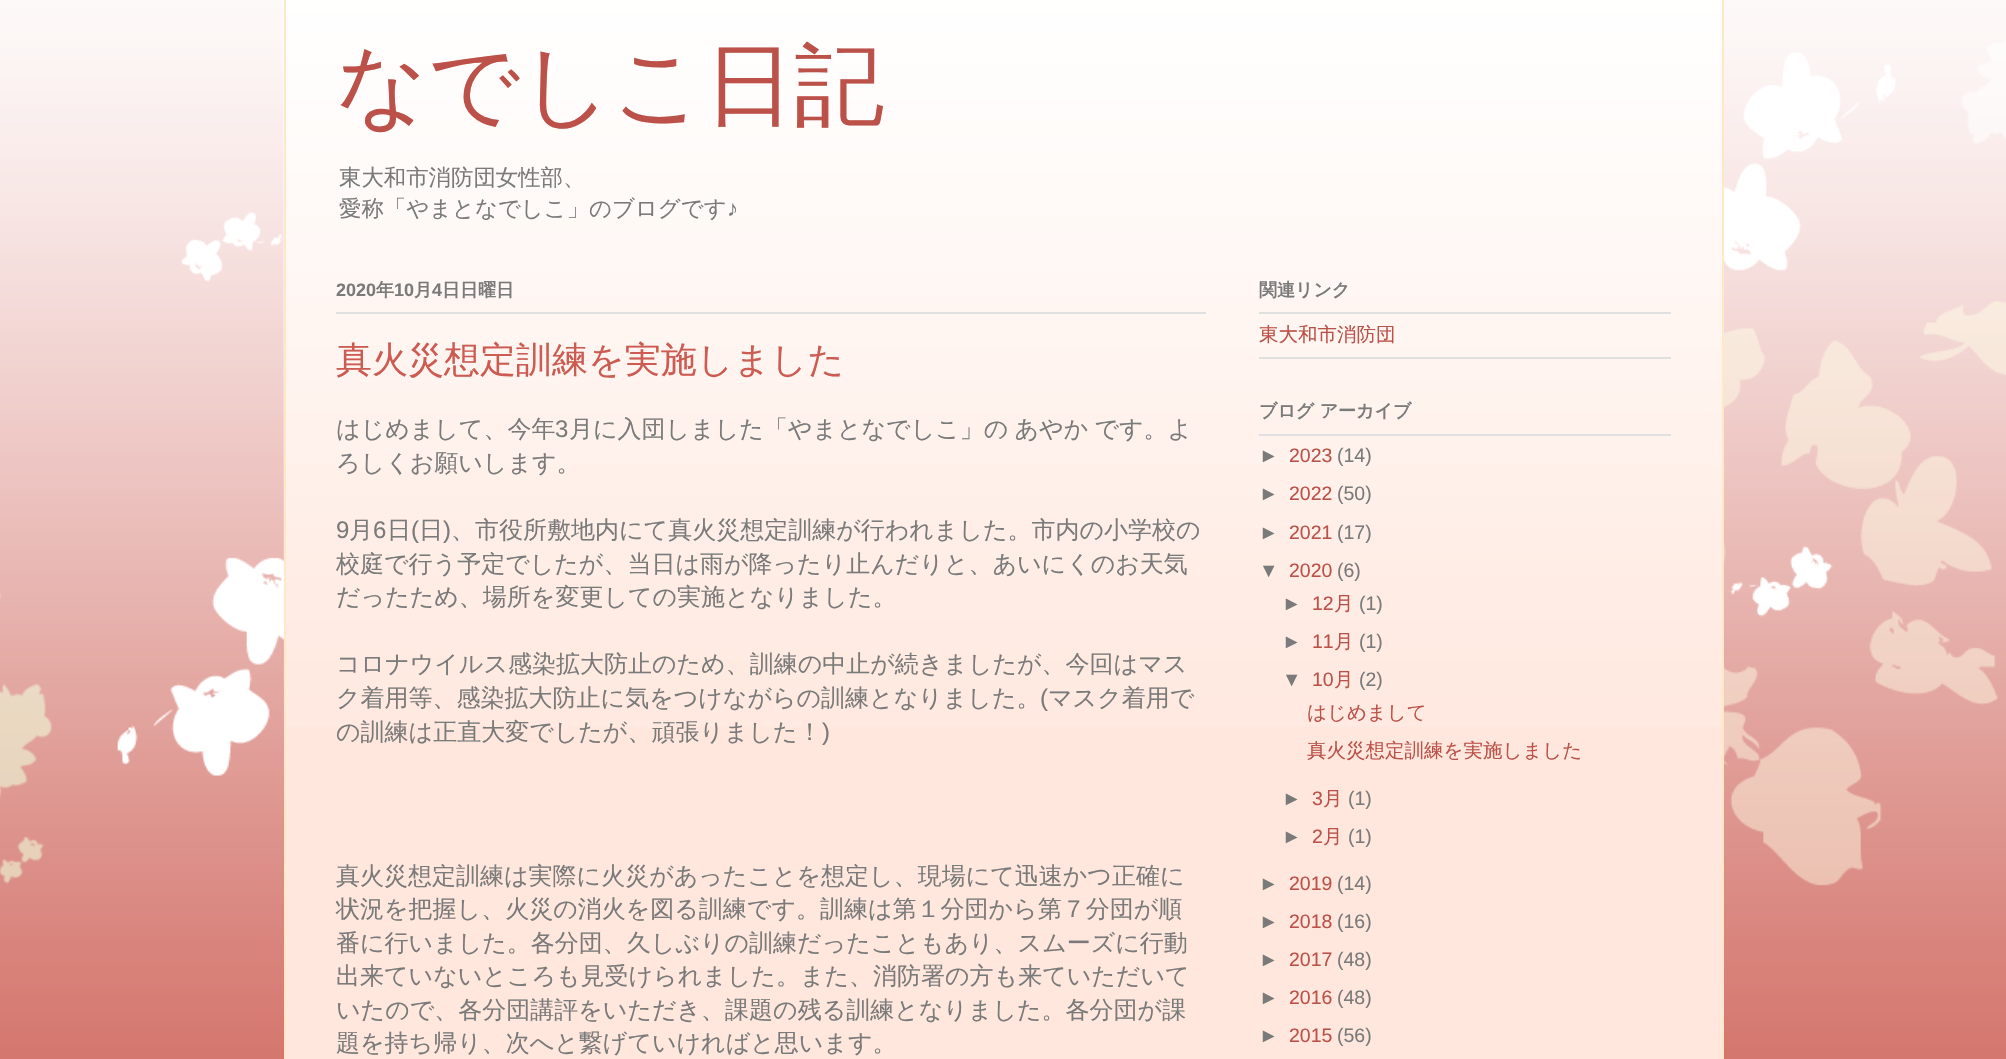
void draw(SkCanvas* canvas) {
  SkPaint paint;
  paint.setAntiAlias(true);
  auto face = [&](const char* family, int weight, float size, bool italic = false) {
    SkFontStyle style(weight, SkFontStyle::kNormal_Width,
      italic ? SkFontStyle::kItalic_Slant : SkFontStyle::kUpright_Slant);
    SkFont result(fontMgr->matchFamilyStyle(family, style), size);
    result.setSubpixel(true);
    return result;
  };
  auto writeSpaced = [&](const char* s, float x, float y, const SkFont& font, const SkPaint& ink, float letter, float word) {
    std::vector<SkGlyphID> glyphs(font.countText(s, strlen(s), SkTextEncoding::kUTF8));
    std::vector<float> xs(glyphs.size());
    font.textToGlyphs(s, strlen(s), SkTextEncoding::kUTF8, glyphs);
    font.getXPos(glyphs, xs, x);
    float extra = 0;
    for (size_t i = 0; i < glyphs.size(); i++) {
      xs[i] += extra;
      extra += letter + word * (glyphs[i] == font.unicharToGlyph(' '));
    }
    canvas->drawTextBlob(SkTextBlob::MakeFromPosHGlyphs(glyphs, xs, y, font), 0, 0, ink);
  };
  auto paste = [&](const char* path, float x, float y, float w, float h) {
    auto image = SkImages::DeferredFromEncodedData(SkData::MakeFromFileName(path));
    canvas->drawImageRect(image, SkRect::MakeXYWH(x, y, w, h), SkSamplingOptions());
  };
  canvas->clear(0xffcc5c52);
  paste("img/1.png", 0, 0, 2006, 1059);
  paint.setColor(0xffffe7dd);
  canvas->drawRect(SkRect::MakeXYWH(286, 0, 1436, 1059), paint);
  paste("img/2.png", 283, 0, 1439, 727);
  {
    const struct { float x, y, w, h; SkColor color; } items[] = {
      {1722, 0, 2, 1059, 0xffffe8c5},
      {284, 0, 2, 1059, 0xffffe8c5},
      {336, 312, 870, 2, 0xffe0e0e0},
      {1259, 357, 412, 2, 0xffe0e0e0},
      {1259, 312, 412, 2, 0xffe0e0e0},
      {1259, 434, 412, 2, 0xffe0e0e0},
    };
    for (auto [x, y, w, h, color] : items) {
      paint.setColor(color);
      canvas->drawRect(SkRect::MakeXYWH(x, y, w, h), paint);
    }
  }
  auto f0 = face("WenQuanYi Zen Hei", 500, 90);
  paint.setColor(0xffbb5148);
  canvas->drawString("なでしこ日記", 336, 116, f0, paint);
  auto f1 = face("WenQuanYi Zen Hei", 500, 22.4f);
  paint.setColor(0xff7a7a7a);
  canvas->drawString("東大和市消防団女性部、", 339, 185, f1, paint);
  canvas->drawString("愛称「やまとなでしこ」のブログです", 339, 216, f1, paint);
  auto f2 = face("Liberation Sans", 400, 22.4f);
  canvas->drawString("♪", 727, 216, f2, paint);
  auto f3 = face("Liberation Sans", 700, 18);
  canvas->drawString("2020", 336, 296, f3, paint);
  auto f4 = face("WenQuanYi Zen Hei", 700, 18);
  canvas->drawString("年", 376, 296, f4, paint);
  canvas->drawString("10", 394, 296, f3, paint);
  canvas->drawString("月", 414, 296, f4, paint);
  canvas->drawString("4", 432, 296, f3, paint);
  canvas->drawString("日日曜日", 442, 296, f4, paint);
  auto f5 = face("WenQuanYi Zen Hei", 500, 36);
  paint.setColor(0xffcc5c52);
  canvas->drawString("真火災想定訓練を実施しました", 336, 372, f5, paint);
  auto f6 = face("WenQuanYi Zen Hei", 500, 24);
  paint.setColor(0xff7a7a7a);
  canvas->drawString("はじめまして、今年", 336, 437, f6, paint);
  auto f7 = face("Liberation Sans", 400, 24);
  canvas->drawString("3", 555, 437, f7, paint);
  writeSpaced("月に入団しました「やまとなでしこ」の あやか です。よ", 569, 437, f6, paint, 0, -1);
  canvas->drawString("ろしくお願いします。", 336, 471, f6, paint);
  canvas->drawString("9", 336, 538, f7, paint);
  canvas->drawString("月", 349, 538, f6, paint);
  canvas->drawString("6", 373, 538, f7, paint);
  canvas->drawString("日", 387, 538, f6, paint);
  canvas->drawString("(", 411, 538, f7, paint);
  canvas->drawString("日", 419, 538, f6, paint);
  canvas->drawString(")", 443, 538, f7, paint);
  {
    const struct { const char* s; float x, y; } items[] = {
      {"、市役所敷地内にて真火災想定訓練が行われました。市内の小学校の", 451, 538},
      {"校庭で行う予定でしたが、当日は雨が降ったり止んだりと、あいにくのお天気", 336, 572},
      {"だったため、場所を変更しての実施となりました。", 336, 605},
      {"コロナウイルス感染拡大防止のため、訓練の中止が続きましたが、今回はマス", 336, 672},
      {"ク着用等、感染拡大防止に気をつけながらの訓練となりました。", 336, 706},
    };
    for (auto [s, x, y] : items) {
      canvas->drawString(s, x, y, f6, paint);
    }
  }
  canvas->drawString("(", 1040, 706, f7, paint);
  canvas->drawString("マスク着用で", 1048, 706, f6, paint);
  canvas->drawString("の訓練は正直大変でしたが、頑張りました！", 336, 740, f6, paint);
  canvas->drawString(")", 822, 740, f7, paint);
  {
    const struct { const char* s; float x, y; } items[] = {
      {"真火災想定訓練は実際に火災があったことを想定し、現場にて迅速かつ正確に", 336, 884},
      {"状況を把握し、火災の消火を図る訓練です。訓練は第１分団から第７分団が順", 336, 917},
      {"番に行いました。各分団、久しぶりの訓練だったこともあり、スムーズに行動", 336, 951},
      {"出来ていないところも見受けられました。また、消防署の方も来ていただいて", 336, 984},
      {"いたので、各分団講評をいただき、課題の残る訓練となりました。各分団が課", 336, 1018},
      {"題を持ち帰り、次へと繋げていければと思います。", 336, 1051},
    };
    for (auto [s, x, y] : items) {
      canvas->drawString(s, x, y, f6, paint);
    }
  }
  canvas->drawString("関連リンク", 1259, 296, f4, paint);
  auto f8 = face("WenQuanYi Zen Hei", 500, 19.5f);
  paint.setColor(0xffbb5148);
  canvas->drawString("東大和市消防団", 1259, 341, f8, paint);
  paint.setColor(0xff7a7a7a);
  canvas->drawString("ブログ アーカイブ", 1259, 417, f4, paint);
  auto f9 = face("Liberation Sans", 400, 19.5f);
  canvas->drawString("►", 1259, 462, f9, paint);
  paint.setColor(0xffbb5148);
  canvas->drawString("2023", 1289, 462, f9, paint);
  paint.setColor(0xff7a7a7a);
  canvas->drawString("(14)", 1337, 462, f9, paint);
  canvas->drawString("►", 1259, 500, f9, paint);
  paint.setColor(0xffbb5148);
  canvas->drawString("2022", 1289, 500, f9, paint);
  paint.setColor(0xff7a7a7a);
  canvas->drawString("(50)", 1337, 500, f9, paint);
  canvas->drawString("►", 1259, 539, f9, paint);
  paint.setColor(0xffbb5148);
  canvas->drawString("2021", 1289, 539, f9, paint);
  paint.setColor(0xff7a7a7a);
  canvas->drawString("(17)", 1337, 539, f9, paint);
  canvas->drawString("▼", 1259, 577, f9, paint);
  paint.setColor(0xffbb5148);
  canvas->drawString("2020", 1289, 577, f9, paint);
  paint.setColor(0xff7a7a7a);
  canvas->drawString("(6)", 1337, 577, f9, paint);
  canvas->drawString("►", 1282, 610, f9, paint);
  paint.setColor(0xffbb5148);
  canvas->drawString("12", 1312, 610, f9, paint);
  canvas->drawString("月", 1334, 610, f8, paint);
  paint.setColor(0xff7a7a7a);
  canvas->drawString("(1)", 1359, 610, f9, paint);
  canvas->drawString("►", 1282, 648, f9, paint);
  paint.setColor(0xffbb5148);
  canvas->drawString("11", 1312, 648, f9, paint);
  canvas->drawString("月", 1334, 648, f8, paint);
  paint.setColor(0xff7a7a7a);
  canvas->drawString("(1)", 1359, 648, f9, paint);
  canvas->drawString("▼", 1282, 686, f9, paint);
  paint.setColor(0xffbb5148);
  canvas->drawString("10", 1312, 686, f9, paint);
  canvas->drawString("月", 1334, 686, f8, paint);
  paint.setColor(0xff7a7a7a);
  canvas->drawString("(2)", 1359, 686, f9, paint);
  paint.setColor(0xffbb5148);
  canvas->drawString("はじめまして", 1307, 719, f8, paint);
  canvas->drawString("真火災想定訓練を実施しました", 1307, 757, f8, paint);
  paint.setColor(0xff7a7a7a);
  canvas->drawString("►", 1282, 805, f9, paint);
  paint.setColor(0xffbb5148);
  canvas->drawString("3", 1312, 805, f9, paint);
  canvas->drawString("月", 1323, 805, f8, paint);
  paint.setColor(0xff7a7a7a);
  canvas->drawString("(1)", 1348, 805, f9, paint);
  canvas->drawString("►", 1282, 843, f9, paint);
  paint.setColor(0xffbb5148);
  canvas->drawString("2", 1312, 843, f9, paint);
  canvas->drawString("月", 1323, 843, f8, paint);
  paint.setColor(0xff7a7a7a);
  canvas->drawString("(1)", 1348, 843, f9, paint);
  canvas->drawString("►", 1259, 890, f9, paint);
  paint.setColor(0xffbb5148);
  canvas->drawString("2019", 1289, 890, f9, paint);
  paint.setColor(0xff7a7a7a);
  canvas->drawString("(14)", 1337, 890, f9, paint);
  canvas->drawString("►", 1259, 928, f9, paint);
  paint.setColor(0xffbb5148);
  canvas->drawString("2018", 1289, 928, f9, paint);
  paint.setColor(0xff7a7a7a);
  canvas->drawString("(16)", 1337, 928, f9, paint);
  canvas->drawString("►", 1259, 966, f9, paint);
  paint.setColor(0xffbb5148);
  canvas->drawString("2017", 1289, 966, f9, paint);
  paint.setColor(0xff7a7a7a);
  canvas->drawString("(48)", 1337, 966, f9, paint);
  canvas->drawString("►", 1259, 1004, f9, paint);
  paint.setColor(0xffbb5148);
  canvas->drawString("2016", 1289, 1004, f9, paint);
  paint.setColor(0xff7a7a7a);
  canvas->drawString("(48)", 1337, 1004, f9, paint);
  canvas->drawString("►", 1259, 1042, f9, paint);
  paint.setColor(0xffbb5148);
  canvas->drawString("2015", 1289, 1042, f9, paint);
  paint.setColor(0xff7a7a7a);
  canvas->drawString("(56)", 1337, 1042, f9, paint);
}
